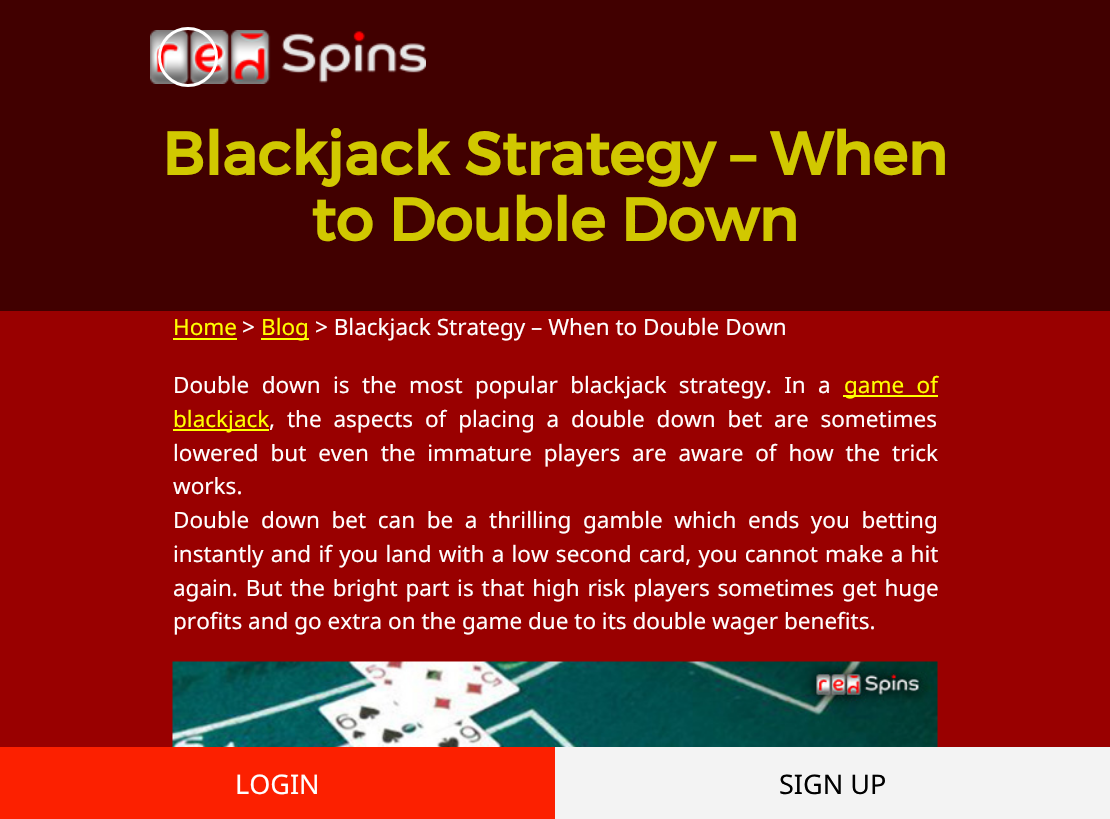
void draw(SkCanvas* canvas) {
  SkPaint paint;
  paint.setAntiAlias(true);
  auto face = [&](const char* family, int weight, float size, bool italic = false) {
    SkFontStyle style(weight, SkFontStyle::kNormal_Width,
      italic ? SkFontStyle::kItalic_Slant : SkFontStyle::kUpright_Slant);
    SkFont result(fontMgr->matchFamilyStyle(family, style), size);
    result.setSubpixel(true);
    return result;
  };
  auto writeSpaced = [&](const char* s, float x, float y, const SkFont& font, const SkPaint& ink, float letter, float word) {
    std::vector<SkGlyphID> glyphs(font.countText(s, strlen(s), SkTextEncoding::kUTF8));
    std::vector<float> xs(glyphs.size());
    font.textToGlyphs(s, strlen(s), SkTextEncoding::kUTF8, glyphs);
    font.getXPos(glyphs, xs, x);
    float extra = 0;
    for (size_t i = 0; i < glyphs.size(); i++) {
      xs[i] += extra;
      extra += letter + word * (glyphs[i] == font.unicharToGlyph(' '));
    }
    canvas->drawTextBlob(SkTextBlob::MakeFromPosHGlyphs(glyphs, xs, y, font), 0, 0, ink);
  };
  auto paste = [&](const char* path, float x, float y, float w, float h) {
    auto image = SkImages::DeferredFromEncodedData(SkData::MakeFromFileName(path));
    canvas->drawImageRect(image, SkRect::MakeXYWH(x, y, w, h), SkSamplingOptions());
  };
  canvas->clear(0xff990000);
  paint.setColor(0xff410000);
  canvas->drawRect(SkRect::MakeXYWH(0, 0, 1110, 311), paint);
  paste("img/1.png", 150, 30, 276, 54);
  paint.setStroke(true);
  paint.setStrokeWidth(3);
  paint.setColor(0xffffffff);
  canvas->drawCircle(188, 57, 28.5f, paint);
  paint.setStroke(false);
  {
    const struct { float x, y, w, h; SkColor color; } items[] = {
      {173, 338, 64, 2, 0xffffff00},
      {261, 338, 48, 2, 0xffffff00},
      {843, 395, 95, 2, 0xffffff00},
      {173, 429, 96, 2, 0xffffff00},
    };
    for (auto [x, y, w, h, color] : items) {
      paint.setColor(color);
      canvas->drawRect(SkRect::MakeXYWH(x, y, w, h), paint);
    }
  }
  paste("img/2.png", 172, 661, 766, 86);
  paint.setColor(0xfffc2000);
  canvas->drawRect(SkRect::MakeXYWH(0, 747, 555, 72), paint);
  paint.setColor(0xfff3f3f3);
  canvas->drawRect(SkRect::MakeXYWH(555, 747, 555, 72), paint);
  auto f0 = face("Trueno", 700, 60);
  paint.setColor(0xffd1c800);
  canvas->drawString("Blackjack Strategy – When", 162, 175, f0, paint);
  canvas->drawString("to Double Down", 311, 241, f0, paint);
  auto f1 = face("Noto Sans", 400, 22.5f);
  paint.setColor(0xffffff00);
  canvas->drawString("Home", 173, 335, f1, paint);
  paint.setColor(0xffffffff);
  canvas->drawString(">", 242, 335, f1, paint);
  paint.setColor(0xffffff00);
  canvas->drawString("Blog", 261, 335, f1, paint);
  paint.setColor(0xffffffff);
  canvas->drawString("> Blackjack Strategy – When to Double Down", 315, 335, f1, paint);
  writeSpaced("Double down is the most popular blackjack strategy. In a", 173, 393, f1, paint, 0, 6.5f);
  paint.setColor(0xffffff00);
  writeSpaced("game of", 844, 393, f1, paint, 0, 6.5f);
  canvas->drawString("blackjack", 173, 427, f1, paint);
  paint.setColor(0xffffffff);
  writeSpaced(", the aspects of placing a double down bet are sometimes", 269, 427, f1, paint, 0, 6);
  writeSpaced("lowered but even the immature players are aware of how the trick", 173, 461, f1, paint, 0, 6);
  canvas->drawString("works.", 173, 494, f1, paint);
  writeSpaced("Double down bet can be a thrilling gamble which ends you betting", 173, 528, f1, paint, 0, 5.75f);
  writeSpaced("instantly and if you land with a low second card, you cannot make a hit", 173, 562, f1, paint, 0, 1.4f);
  writeSpaced("again. But the bright part is that high risk players sometimes get huge", 173, 596, f1, paint, 0, 2);
  canvas->drawString("profits and go extra on the game due to its double wager benefits.", 173, 629, f1, paint);
  auto f2 = face("Noto Sans", 400, 27);
  canvas->drawString("LOGIN", 235, 794, f2, paint);
  paint.setColor(0xff000000);
  canvas->drawString("SIGN UP", 779, 794, f2, paint);
}
